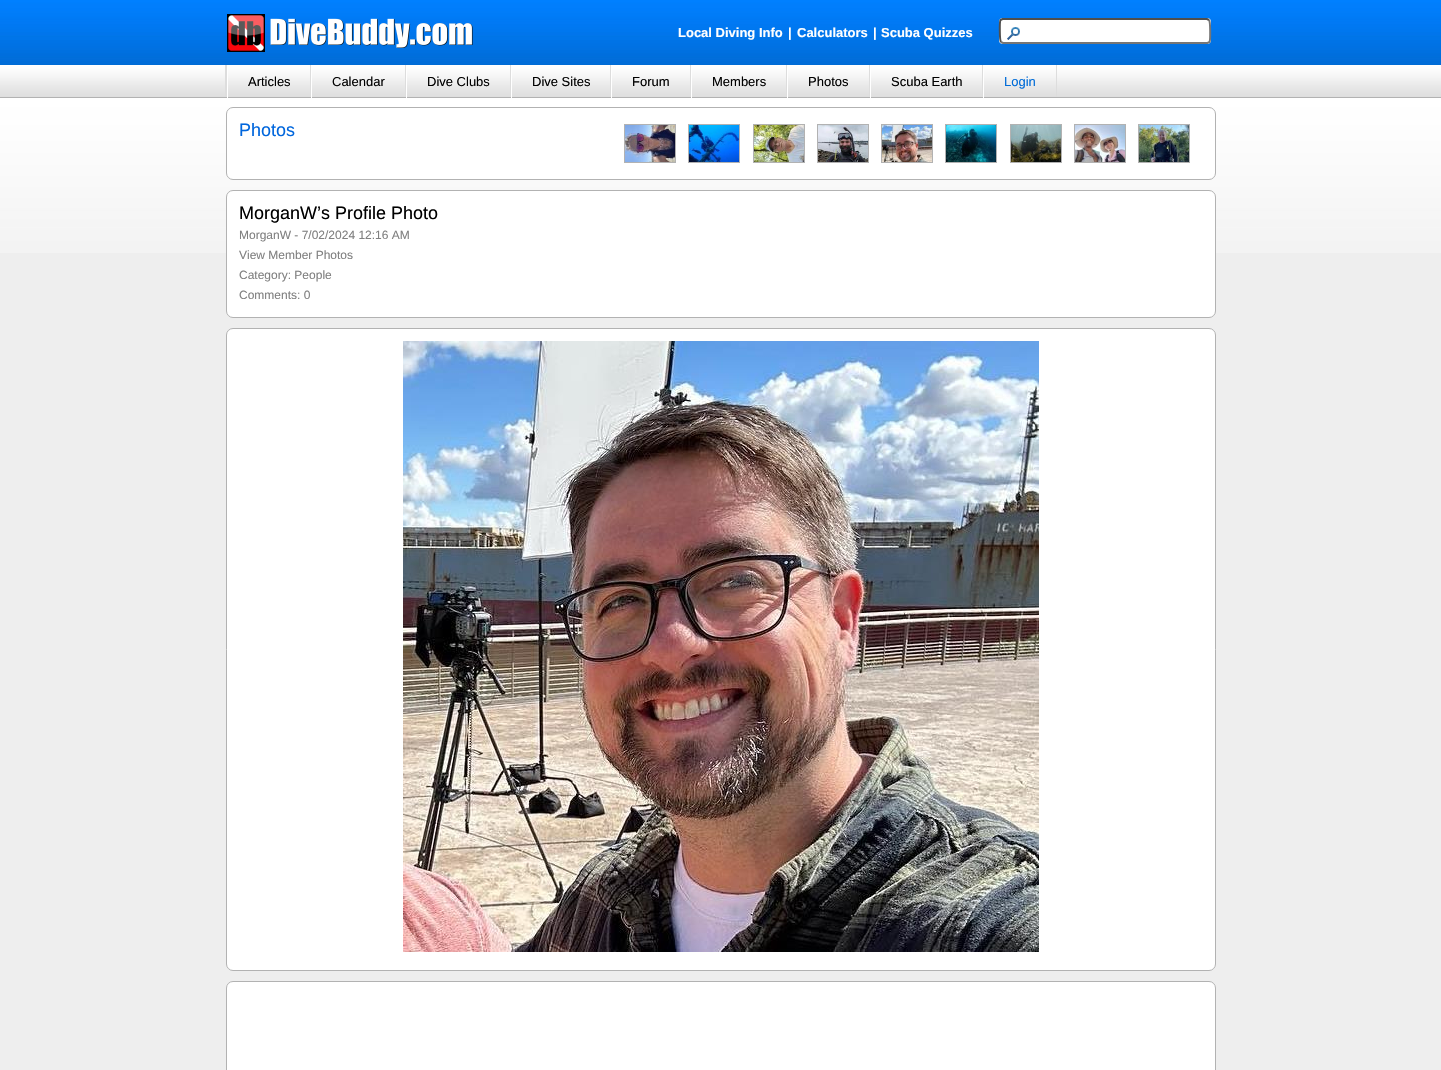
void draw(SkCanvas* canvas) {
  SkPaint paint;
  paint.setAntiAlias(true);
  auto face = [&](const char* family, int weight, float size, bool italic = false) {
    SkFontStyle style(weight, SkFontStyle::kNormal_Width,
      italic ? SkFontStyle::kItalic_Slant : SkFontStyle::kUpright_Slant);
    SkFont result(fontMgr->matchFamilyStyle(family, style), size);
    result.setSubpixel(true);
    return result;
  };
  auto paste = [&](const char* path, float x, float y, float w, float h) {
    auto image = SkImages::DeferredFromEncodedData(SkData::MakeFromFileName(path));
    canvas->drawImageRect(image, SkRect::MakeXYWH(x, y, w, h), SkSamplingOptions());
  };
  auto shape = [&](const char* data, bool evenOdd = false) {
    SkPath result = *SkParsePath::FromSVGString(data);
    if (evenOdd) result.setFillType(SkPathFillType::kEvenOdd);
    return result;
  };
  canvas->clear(0xffeeeeee);
  paste("img/1.png", 0, 0, 1441, 253);
  paste("img/2.png", 227, 14, 246, 38);
  paint.setColor(0xffffffff);
  canvas->drawRoundRect(SkRect::MakeXYWH(999, 18, 212, 26), 4, 4, paint);
  paste("img/3.png", 1007, 27, 13, 13);
  paint.setStroke(true);
  paint.setStrokeWidth(2);
  paint.setColor(0xff767676);
  canvas->drawPath(shape("M1209 20C1210.5 21.5 1210.5 40.5 1209.5 42L1207.5 43H1003L1001 42"), paint);
  paint.setColor(0xff4f4f4f);
  canvas->drawPath(shape("M1001 42C999.5 40.5 999.5 21.5 1000.5 20L1002.5 19H1207L1209 20"), paint);
  paint.setStroke(false);
  {
    const struct { float x, y, w, h; SkColor color; } items[] = {
      {225, 65, 2, 32, 0xffdddddd},
      {310, 65, 1, 33, 0xffdddddd},
      {310, 97, 1, 1, 0xffb2b2b2},
      {227, 65, 1, 33, 0xffffffff},
      {405, 65, 1, 33, 0xffdddddd},
      {405, 97, 1, 1, 0xffb2b2b2},
      {311, 65, 1, 33, 0xffffffff},
      {510, 65, 1, 33, 0xffdddddd},
      {510, 97, 1, 1, 0xffb2b2b2},
      {406, 65, 1, 33, 0xffffffff},
      {610, 65, 1, 33, 0xffdddddd},
      {610, 97, 1, 1, 0xffb2b2b2},
      {511, 65, 1, 33, 0xffffffff},
      {690, 65, 1, 33, 0xffdddddd},
      {690, 97, 1, 1, 0xffb2b2b2},
      {611, 65, 1, 33, 0xffffffff},
      {786, 65, 1, 33, 0xffdddddd},
      {786, 97, 1, 1, 0xffb2b2b2},
      {691, 65, 1, 33, 0xffffffff},
      {869, 65, 1, 33, 0xffdddddd},
      {869, 97, 1, 1, 0xffb2b2b2},
      {787, 65, 1, 33, 0xffffffff},
      {982, 65, 1, 33, 0xffdddddd},
      {982, 97, 1, 1, 0xffb2b2b2},
      {870, 65, 1, 33, 0xffffffff},
      {1056, 65, 1, 33, 0xffdddddd},
      {1056, 97, 1, 1, 0xffb2b2b2},
      {983, 65, 1, 33, 0xffffffff},
    };
    for (auto [x, y, w, h, color] : items) {
      paint.setColor(color);
      canvas->drawRect(SkRect::MakeXYWH(x, y, w, h), paint);
    }
  }
  canvas->drawRoundRect(SkRect::MakeXYWH(226.5f, 107.5f, 989, 72), 6.5f, 6.5f, paint);
  paint.setStroke(true);
  paint.setStrokeWidth(1);
  paint.setColor(0xffb2b2b2);
  canvas->drawRoundRect(SkRect::MakeXYWH(226.5f, 107.5f, 989, 72), 6.5f, 6.5f, paint);
  canvas->drawRect(SkRect::MakeXYWH(624.5f, 124.5f, 51, 38), paint);
  paste("img/4.png", 625, 125, 50, 37);
  canvas->drawRect(SkRect::MakeXYWH(688.5f, 124.5f, 51, 38), paint);
  paste("img/5.png", 689, 125, 50, 37);
  canvas->drawRect(SkRect::MakeXYWH(753.5f, 124.5f, 51, 38), paint);
  paste("img/6.png", 754, 125, 50, 37);
  canvas->drawRect(SkRect::MakeXYWH(817.5f, 124.5f, 51, 38), paint);
  paste("img/7.png", 818, 125, 50, 37);
  canvas->drawRect(SkRect::MakeXYWH(881.5f, 124.5f, 51, 38), paint);
  paste("img/8.png", 882, 125, 50, 37);
  canvas->drawRect(SkRect::MakeXYWH(945.5f, 124.5f, 51, 38), paint);
  paste("img/9.png", 946, 125, 50, 37);
  canvas->drawRect(SkRect::MakeXYWH(1010.5f, 124.5f, 51, 38), paint);
  paste("img/10.png", 1011, 125, 50, 37);
  canvas->drawRect(SkRect::MakeXYWH(1074.5f, 124.5f, 51, 38), paint);
  paste("img/11.png", 1075, 125, 50, 37);
  canvas->drawRect(SkRect::MakeXYWH(1138.5f, 124.5f, 51, 38), paint);
  paste("img/12.png", 1139, 125, 50, 37);
  paint.setStroke(false);
  paint.setColor(0xffffffff);
  canvas->drawRoundRect(SkRect::MakeXYWH(226.5f, 190.5f, 989, 127), 6.5f, 6.5f, paint);
  paint.setStroke(true);
  paint.setColor(0xffb2b2b2);
  canvas->drawRoundRect(SkRect::MakeXYWH(226.5f, 190.5f, 989, 127), 6.5f, 6.5f, paint);
  paint.setStroke(false);
  paint.setColor(0xffffffff);
  canvas->drawRoundRect(SkRect::MakeXYWH(226.5f, 328.5f, 989, 642), 6.5f, 6.5f, paint);
  paint.setStroke(true);
  paint.setColor(0xffb2b2b2);
  canvas->drawRoundRect(SkRect::MakeXYWH(226.5f, 328.5f, 989, 642), 6.5f, 6.5f, paint);
  paste("img/13.png", 403, 341, 636, 611);
  paint.setStroke(false);
  paint.setColor(0xffffffff);
  canvas->drawRoundRect(SkRect::MakeXYWH(226.5f, 981.5f, 989, 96), 6.5f, 6.5f, paint);
  paint.setStroke(true);
  paint.setColor(0xffb2b2b2);
  canvas->drawRoundRect(SkRect::MakeXYWH(226.5f, 981.5f, 989, 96), 6.5f, 6.5f, paint);
  auto f0 = face("Liberation Sans", 700, 13);
  paint.setStroke(false);
  paint.setColor(0xffffffff);
  {
    const struct { const char* s; float x, y; } items[] = {
      {"Local Diving Info", 678, 37},
      {"|", 788, 37},
      {"Calculators", 797, 37},
      {"|", 873, 37},
      {"Scuba Quizzes", 881, 37},
    };
    for (auto [s, x, y] : items) {
      canvas->drawString(s, x, y, f0, paint);
    }
  }
  auto f1 = face("Liberation Sans", 400, 13);
  paint.setColor(0xff000000);
  {
    const struct { const char* s; float x, y; } items[] = {
      {"Articles", 248, 86},
      {"Calendar", 332, 86},
      {"Dive Clubs", 427, 86},
      {"Dive Sites", 532, 86},
      {"Forum", 632, 86},
      {"Members", 712, 86},
      {"Photos", 808, 86},
      {"Scuba Earth", 891, 86},
    };
    for (auto [s, x, y] : items) {
      canvas->drawString(s, x, y, f1, paint);
    }
  }
  paint.setColor(0xff006cd8);
  canvas->drawString("Login", 1004, 86, f1, paint);
  auto f2 = face("Liberation Sans", 400, 18);
  paint.setColor(0xff0066dd);
  canvas->drawString("Photos", 239, 136, f2, paint);
  paint.setColor(0xff000000);
  canvas->drawString("MorganW’s Profile Photo", 239, 219, f2, paint);
  auto f3 = face("Liberation Sans", 400, 12);
  paint.setColor(0xff808080);
  {
    const struct { const char* s; float x, y; } items[] = {
      {"MorganW - 7/02/2024 12:16 AM", 239, 239},
      {"View Member Photos", 239, 259},
      {"Category: People", 239, 279},
      {"Comments: 0", 239, 299},
    };
    for (auto [s, x, y] : items) {
      canvas->drawString(s, x, y, f3, paint);
    }
  }
}
